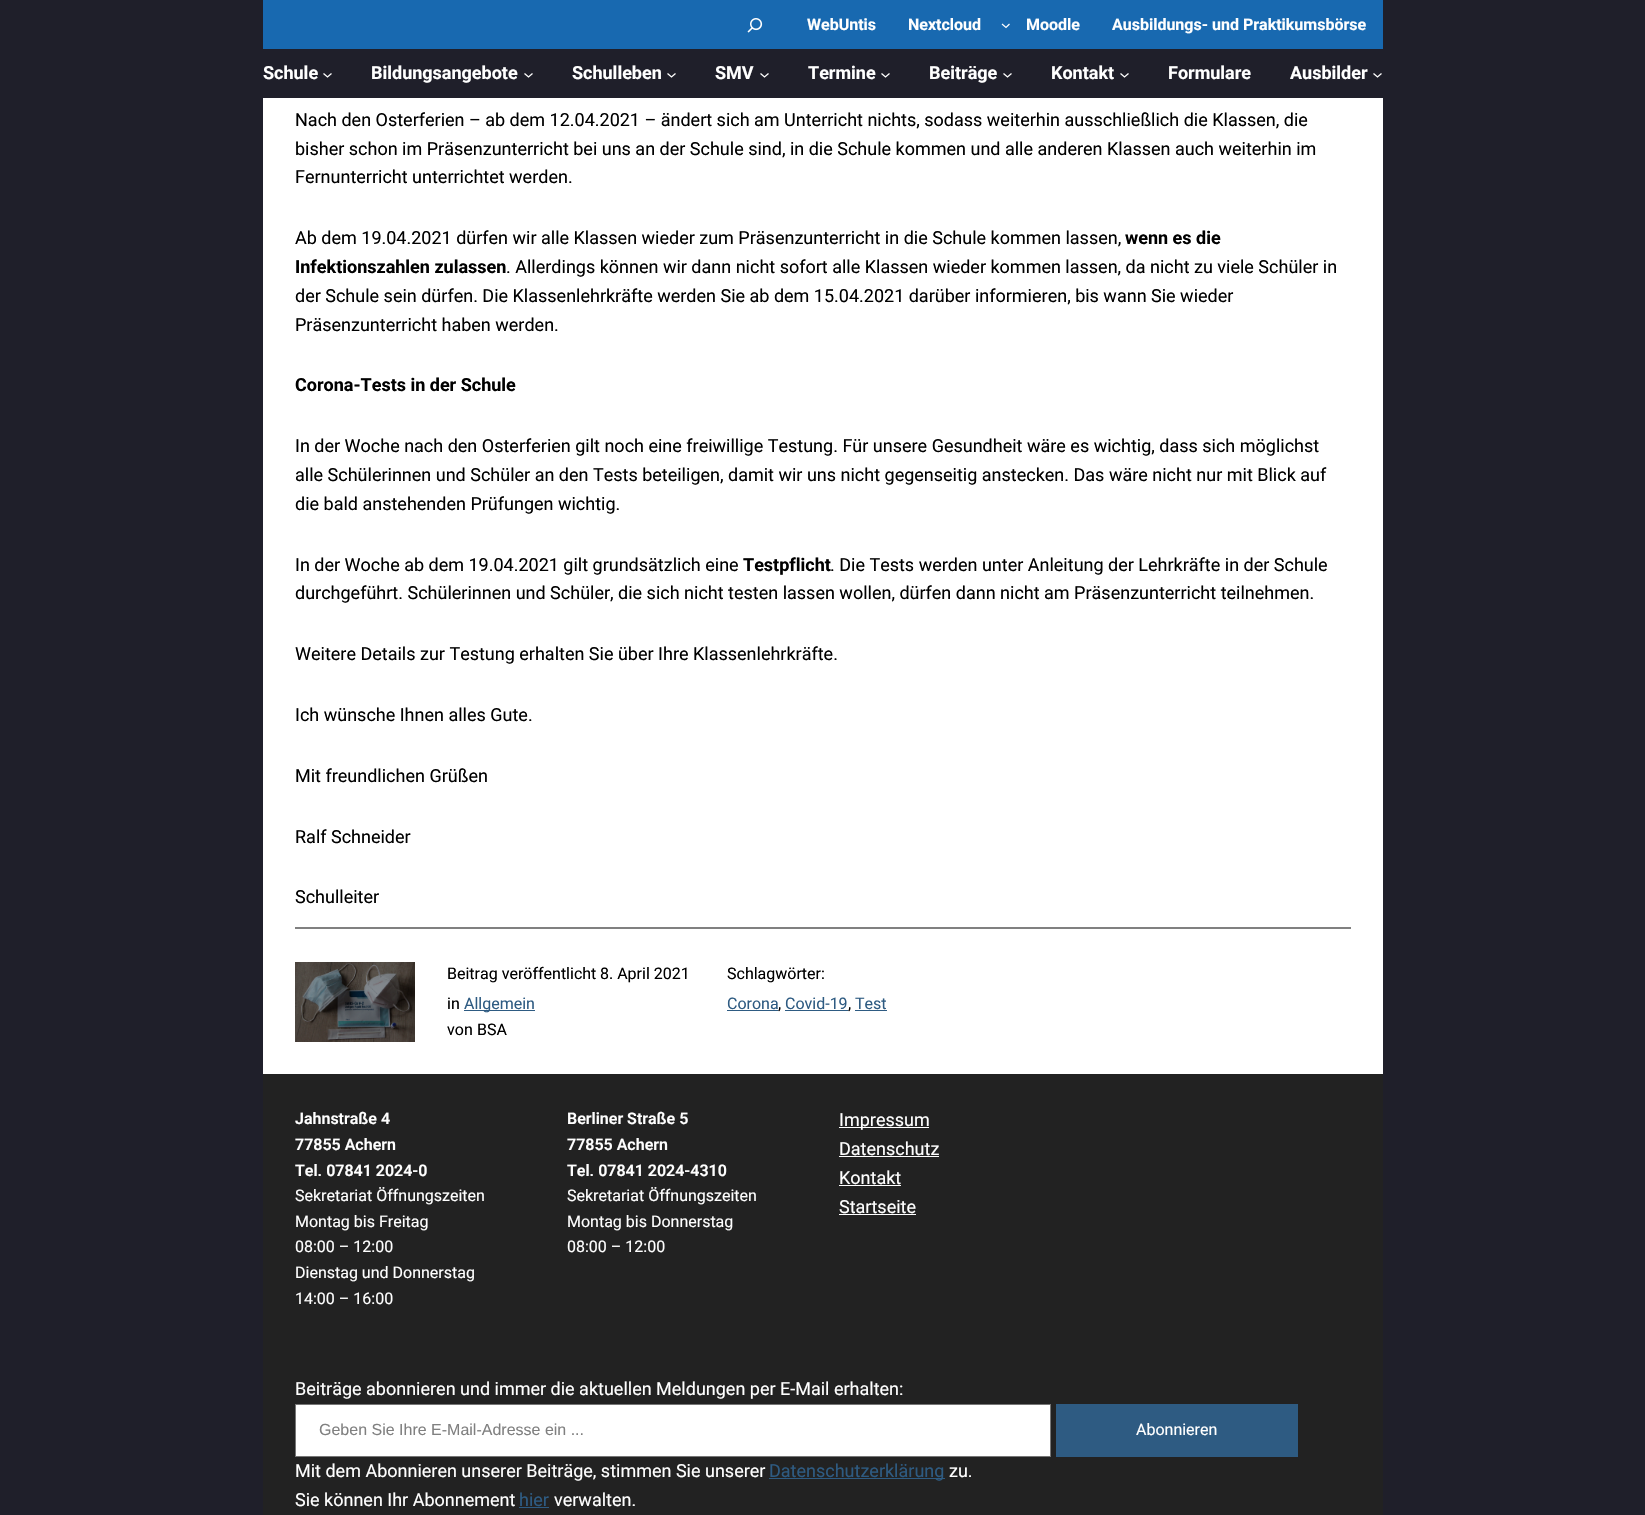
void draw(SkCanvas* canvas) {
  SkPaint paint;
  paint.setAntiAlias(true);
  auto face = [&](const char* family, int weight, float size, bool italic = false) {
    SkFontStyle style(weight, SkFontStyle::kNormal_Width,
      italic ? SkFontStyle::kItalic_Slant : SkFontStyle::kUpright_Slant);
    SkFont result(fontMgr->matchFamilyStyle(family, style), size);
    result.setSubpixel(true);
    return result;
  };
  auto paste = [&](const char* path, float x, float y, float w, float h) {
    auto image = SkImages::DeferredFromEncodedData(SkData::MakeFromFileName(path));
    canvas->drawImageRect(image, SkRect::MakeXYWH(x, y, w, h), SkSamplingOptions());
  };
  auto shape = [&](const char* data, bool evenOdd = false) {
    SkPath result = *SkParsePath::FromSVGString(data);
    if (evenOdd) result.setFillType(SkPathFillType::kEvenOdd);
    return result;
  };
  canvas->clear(0xff1f1f2a);
  paint.setColor(0xff1869b0);
  canvas->drawRect(SkRect::MakeXYWH(263, 0, 1120, 49), paint);
  paste("img/1.png", 747, 18, 16, 15);
  paint.setStroke(true);
  paint.setStrokeWidth(1.2f);
  paint.setColor(0xffffffff);
  canvas->drawPath(shape("M1002 24L1006 27.5L1009.5 24"), paint);
  paint.setStrokeWidth(1.3f);
  canvas->drawPath(shape("M323.5 73.5L327.5 77L331.5 73.5"), paint);
  canvas->drawPath(shape("M524.5 73.5L528.5 77L532.5 73.5"), paint);
  canvas->drawPath(shape("M667.5 73.5L671.5 77L675.5 73.5"), paint);
  canvas->drawPath(shape("M760.5 73.5L764.5 77L768.5 73.5"), paint);
  canvas->drawPath(shape("M881.5 73.5L885.5 77L889.5 73.5"), paint);
  canvas->drawPath(shape("M1003.5 73.5L1007.5 77L1011.5 73.5"), paint);
  canvas->drawPath(shape("M1120.5 73.5L1124.5 77L1128.5 73.5"), paint);
  canvas->drawPath(shape("M1373.5 73.5L1377.5 77L1381.5 73.5"), paint);
  paint.setStroke(false);
  canvas->drawRect(SkRect::MakeXYWH(263, 98, 1120, 976), paint);
  paint.setColor(0xff808080);
  canvas->drawRect(SkRect::MakeXYWH(295, 927, 1056, 2), paint);
  paste("img/2.png", 295, 962, 120, 80);
  {
    const struct { float x, y, w, h; SkColor color; } items[] = {
      {464, 1010, 71, 1, 0xff2e5b82},
      {727, 1010, 51, 1, 0xff2e5b82},
      {785, 1010, 63, 1, 0xff2e5b82},
      {855, 1010, 32, 1, 0xff2e5b82},
      {263, 1074, 1120, 441, 0xff222222},
      {839, 1127, 90, 1, 0xffffffff},
      {839, 1156, 100, 1, 0xffffffff},
      {839, 1185, 62, 1, 0xffffffff},
      {839, 1214, 77, 1, 0xffffffff},
    };
    for (auto [x, y, w, h, color] : items) {
      paint.setColor(color);
      canvas->drawRect(SkRect::MakeXYWH(x, y, w, h), paint);
    }
  }
  canvas->drawRect(SkRect::MakeXYWH(295.5f, 1404.5f, 755, 52), paint);
  paint.setStroke(true);
  paint.setStrokeWidth(1);
  paint.setColor(0xff767676);
  canvas->drawRect(SkRect::MakeXYWH(295.5f, 1404.5f, 755, 52), paint);
  paint.setStroke(false);
  {
    const struct { float x, y, w, h; SkColor color; } items[] = {
      {1056, 1404, 242, 53, 0xff2e5b82},
      {769, 1478, 176, 1, 0xff2e5b82},
      {519, 1507, 30, 1, 0xff2e5b82},
    };
    for (auto [x, y, w, h, color] : items) {
      paint.setColor(color);
      canvas->drawRect(SkRect::MakeXYWH(x, y, w, h), paint);
    }
  }
  auto f0 = face("Roboto", 700, 16);
  paint.setColor(0xffffffff);
  {
    const struct { const char* s; float x, y; } items[] = {
      {"WebUntis", 807, 30},
      {"Nextcloud", 908, 30},
      {"Moodle", 1026, 30},
      {"Ausbildungs- und Praktikumsbörse", 1112, 30},
    };
    for (auto [s, x, y] : items) {
      canvas->drawString(s, x, y, f0, paint);
    }
  }
  auto f1 = face("Roboto", 700, 18);
  {
    const struct { const char* s; float x, y; } items[] = {
      {"Schule", 263, 79},
      {"Bildungsangebote", 371, 79},
      {"Schulleben", 572, 79},
      {"SMV", 715, 79},
      {"Termine", 808, 79},
      {"Beiträge", 929, 79},
      {"Kontakt", 1051, 79},
      {"Formulare", 1168, 79},
      {"Ausbilder", 1290, 79},
    };
    for (auto [s, x, y] : items) {
      canvas->drawString(s, x, y, f1, paint);
    }
  }
  auto f2 = face("Roboto", 400, 18);
  paint.setColor(0xff000000);
  {
    const struct { const char* s; float x, y; } items[] = {
      {"Nach den Osterferien – ab dem 12.04.2021 – ändert sich am Unterricht nichts, sodass weiterhin ausschließlich die Klassen, die", 295, 126},
      {"bisher schon im Präsenzunterricht bei uns an der Schule sind, in die Schule kommen und alle anderen Klassen auch weiterhin im", 295, 155},
      {"Fernunterricht unterrichtet werden.", 295, 183},
      {"Ab dem 19.04.2021 dürfen wir alle Klassen wieder zum Präsenzunterricht in die Schule kommen lassen,", 295, 244},
    };
    for (auto [s, x, y] : items) {
      canvas->drawString(s, x, y, f2, paint);
    }
  }
  canvas->drawString("wenn es die", 1125, 244, f1, paint);
  canvas->drawString("Infektionszahlen zulassen", 295, 273, f1, paint);
  {
    const struct { const char* s; float x, y; } items[] = {
      {". Allerdings können wir dann nicht sofort alle Klassen wieder kommen lassen, da nicht zu viele Schüler in", 506, 273},
      {"der Schule sein dürfen. Die Klassenlehrkräfte werden Sie ab dem 15.04.2021 darüber informieren, bis wann Sie wieder", 295, 302},
      {"Präsenzunterricht haben werden.", 295, 331},
    };
    for (auto [s, x, y] : items) {
      canvas->drawString(s, x, y, f2, paint);
    }
  }
  canvas->drawString("Corona-Tests in der Schule", 295, 391, f1, paint);
  {
    const struct { const char* s; float x, y; } items[] = {
      {"In der Woche nach den Osterferien gilt noch eine freiwillige Testung. Für unsere Gesundheit wäre es wichtig, dass sich möglichst", 295, 452},
      {"alle Schülerinnen und Schüler an den Tests beteiligen, damit wir uns nicht gegenseitig anstecken. Das wäre nicht nur mit Blick auf", 295, 481},
      {"die bald anstehenden Prüfungen wichtig.", 295, 510},
      {"In der Woche ab dem 19.04.2021 gilt grundsätzlich eine", 295, 571},
    };
    for (auto [s, x, y] : items) {
      canvas->drawString(s, x, y, f2, paint);
    }
  }
  canvas->drawString("Testpflicht", 743, 571, f1, paint);
  {
    const struct { const char* s; float x, y; } items[] = {
      {". Die Tests werden unter Anleitung der Lehrkräfte in der Schule", 830, 571},
      {"durchgeführt. Schülerinnen und Schüler, die sich nicht testen lassen wollen, dürfen dann nicht am Präsenzunterricht teilnehmen.", 295, 599},
      {"Weitere Details zur Testung erhalten Sie über Ihre Klassenlehrkräfte.", 295, 660},
      {"Ich wünsche Ihnen alles Gute.", 295, 721},
      {"Mit freundlichen Grüßen", 295, 782},
      {"Ralf Schneider", 295, 843},
      {"Schulleiter", 295, 903},
    };
    for (auto [s, x, y] : items) {
      canvas->drawString(s, x, y, f2, paint);
    }
  }
  auto f3 = face("Roboto", 400, 16);
  {
    const struct { const char* s; float x, y; } items[] = {
      {"Beitrag veröffentlicht", 447, 979},
      {"8. April 2021", 600, 979},
      {"in", 447, 1009},
    };
    for (auto [s, x, y] : items) {
      canvas->drawString(s, x, y, f3, paint);
    }
  }
  paint.setColor(0xff2e5b82);
  canvas->drawString("Allgemein", 464, 1009, f3, paint);
  paint.setColor(0xff000000);
  {
    const struct { const char* s; float x, y; } items[] = {
      {"von", 447, 1035},
      {"BSA", 477, 1035},
      {"Schlagwörter:", 727, 979},
    };
    for (auto [s, x, y] : items) {
      canvas->drawString(s, x, y, f3, paint);
    }
  }
  paint.setColor(0xff2e5b82);
  canvas->drawString("Corona", 727, 1009, f3, paint);
  paint.setColor(0xff000000);
  canvas->drawString(",", 778, 1009, f3, paint);
  paint.setColor(0xff2e5b82);
  canvas->drawString("Covid-19", 785, 1009, f3, paint);
  paint.setColor(0xff000000);
  canvas->drawString(",", 848, 1009, f3, paint);
  paint.setColor(0xff2e5b82);
  canvas->drawString("Test", 855, 1009, f3, paint);
  auto f4 = face("Roboto", 600, 16);
  paint.setColor(0xffffffff);
  {
    const struct { const char* s; float x, y; } items[] = {
      {"Jahnstraße 4", 295, 1124},
      {"77855 Achern", 295, 1150},
      {"Tel. 07841 2024-0", 295, 1176},
    };
    for (auto [s, x, y] : items) {
      canvas->drawString(s, x, y, f4, paint);
    }
  }
  {
    const struct { const char* s; float x, y; } items[] = {
      {"Sekretariat Öffnungszeiten", 295, 1201},
      {"Montag bis Freitag", 295, 1227},
      {"08:00 – 12:00", 295, 1252},
      {"Dienstag und Donnerstag", 295, 1278},
      {"14:00 – 16:00", 295, 1304},
    };
    for (auto [s, x, y] : items) {
      canvas->drawString(s, x, y, f3, paint);
    }
  }
  {
    const struct { const char* s; float x, y; } items[] = {
      {"Berliner Straße 5", 567, 1124},
      {"77855 Achern", 567, 1150},
      {"Tel. 07841 2024-4310", 567, 1176},
    };
    for (auto [s, x, y] : items) {
      canvas->drawString(s, x, y, f4, paint);
    }
  }
  {
    const struct { const char* s; float x, y; } items[] = {
      {"Sekretariat Öffnungszeiten", 567, 1201},
      {"Montag bis Donnerstag", 567, 1227},
      {"08:00 – 12:00", 567, 1252},
    };
    for (auto [s, x, y] : items) {
      canvas->drawString(s, x, y, f3, paint);
    }
  }
  {
    const struct { const char* s; float x, y; } items[] = {
      {"Impressum", 839, 1126},
      {"Datenschutz", 839, 1155},
      {"Kontakt", 839, 1184},
      {"Startseite", 839, 1213},
      {"Beiträge abonnieren und immer die aktuellen Meldungen per E-Mail erhalten:", 295, 1395},
    };
    for (auto [s, x, y] : items) {
      canvas->drawString(s, x, y, f2, paint);
    }
  }
  auto f5 = face("Liberation Sans", 400, 16);
  paint.setColor(0xff808080);
  canvas->drawString("Geben Sie Ihre E-Mail-Adresse ein ...", 319, 1435, f5, paint);
  paint.setColor(0xffffffff);
  canvas->drawString("Abonnieren", 1136, 1435, f3, paint);
  canvas->drawString("Mit dem Abonnieren unserer Beiträge, stimmen Sie unserer", 295, 1477, f2, paint);
  paint.setColor(0xff2e5b82);
  canvas->drawString("Datenschutzerklärung", 769, 1477, f2, paint);
  paint.setColor(0xffffffff);
  canvas->drawString("zu.", 949, 1477, f2, paint);
  canvas->drawString("Sie können Ihr Abonnement", 295, 1506, f2, paint);
  paint.setColor(0xff2e5b82);
  canvas->drawString("hier", 519, 1506, f2, paint);
  paint.setColor(0xffffffff);
  canvas->drawString("verwalten.", 554, 1506, f2, paint);
}
